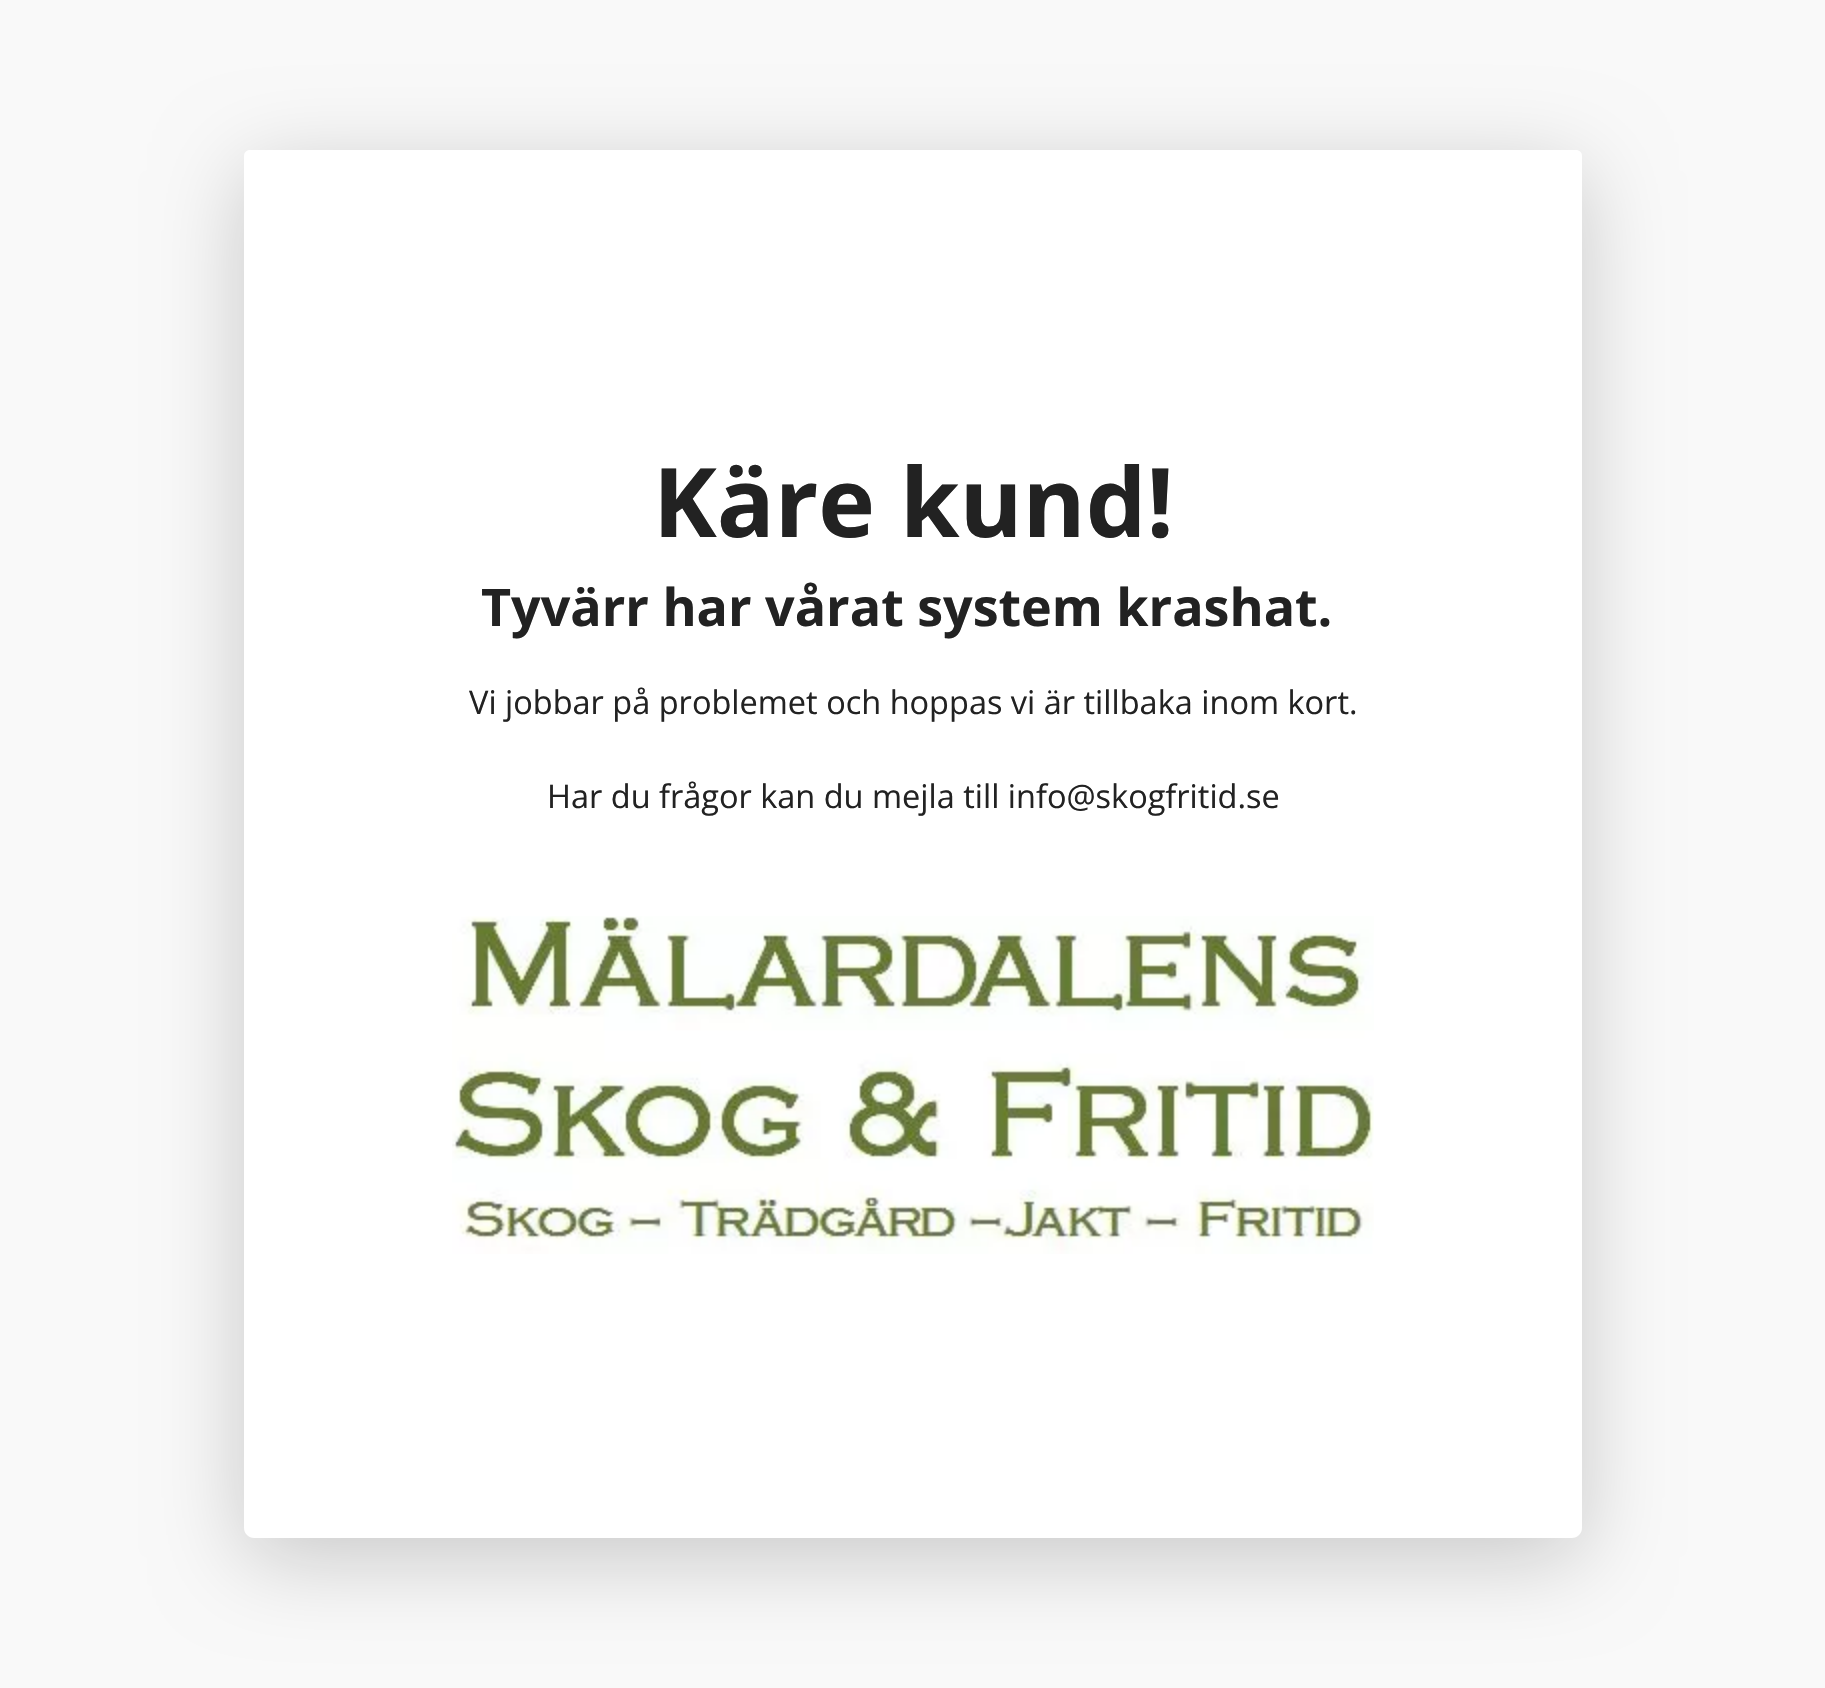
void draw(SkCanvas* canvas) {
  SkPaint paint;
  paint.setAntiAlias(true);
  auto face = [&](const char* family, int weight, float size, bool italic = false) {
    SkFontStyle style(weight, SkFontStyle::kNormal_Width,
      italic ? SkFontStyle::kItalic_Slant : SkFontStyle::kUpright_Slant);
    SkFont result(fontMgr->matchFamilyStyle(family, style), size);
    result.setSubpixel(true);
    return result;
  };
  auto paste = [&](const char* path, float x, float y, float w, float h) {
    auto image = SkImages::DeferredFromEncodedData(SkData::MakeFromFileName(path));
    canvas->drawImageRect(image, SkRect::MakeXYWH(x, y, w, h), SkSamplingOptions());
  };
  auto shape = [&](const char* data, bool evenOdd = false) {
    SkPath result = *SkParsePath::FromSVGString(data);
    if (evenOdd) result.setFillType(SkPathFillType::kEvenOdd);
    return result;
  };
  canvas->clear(0xfff9f9f9);
  paint.setColor(0x33000000);
  paint.setMaskFilter(SkMaskFilter::MakeBlur(kNormal_SkBlurStyle, 44));
  canvas->drawRoundRect(SkRect::MakeXYWH(244, 170, 1338, 1388), 10, 10, paint);
  paint.setMaskFilter(nullptr);
  paint.setColor(0xffffffff);
  canvas->drawPath(shape("M250 150H1576C1579.5 150 1582 152.5 1582 156V1528C1582 1533.5 1577.5 1538 1572 1538H254C248.5 1538 244 1533.5 244 1528V156C244 152.5 246.5 150 250 150Z"), paint);
  paste("img/1.png", 452, 916, 922, 338);
  auto f0 = face("Open Sans", 700, 96);
  paint.setColor(0xff222222);
  canvas->drawString("Käre kund!", 653, 537, f0, paint);
  auto f1 = face("Open Sans", 700, 52);
  canvas->drawString("Tyvärr har vårat system krashat.", 481, 626, f1, paint);
  auto f2 = face("Open Sans", 400, 32.5f);
  canvas->drawString("Vi jobbar på problemet och hoppas vi är tillbaka inom kort.", 469, 714, f2, paint);
  canvas->drawString("Har du frågor kan du mejla till info@skogfritid.se", 547, 808, f2, paint);
}
